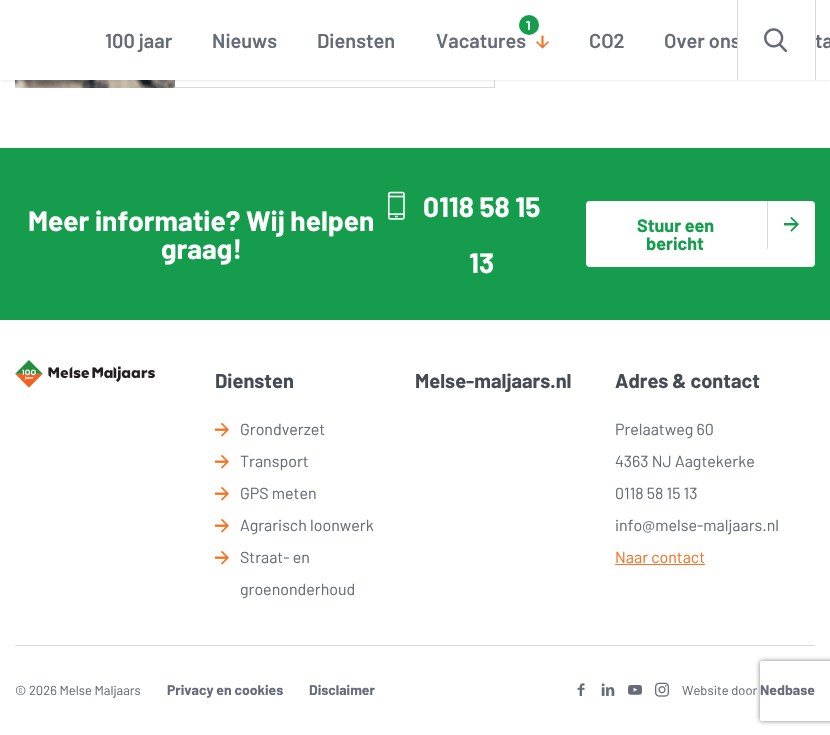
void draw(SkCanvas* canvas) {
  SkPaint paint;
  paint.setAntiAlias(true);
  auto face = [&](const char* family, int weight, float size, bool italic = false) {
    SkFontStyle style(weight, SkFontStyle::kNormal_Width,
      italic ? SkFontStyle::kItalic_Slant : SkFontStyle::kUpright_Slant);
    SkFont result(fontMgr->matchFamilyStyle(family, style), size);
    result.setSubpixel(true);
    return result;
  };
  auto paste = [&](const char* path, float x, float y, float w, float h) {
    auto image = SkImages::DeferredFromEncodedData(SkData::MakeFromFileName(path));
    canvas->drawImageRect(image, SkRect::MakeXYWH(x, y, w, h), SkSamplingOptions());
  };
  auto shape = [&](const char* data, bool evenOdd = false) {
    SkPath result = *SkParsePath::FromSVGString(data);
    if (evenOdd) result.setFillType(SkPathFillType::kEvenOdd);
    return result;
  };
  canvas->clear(0xffffffff);
  paste("img/3.png", 15, 80, 160, 8);
  paint.setColor(0xffd9d9d9);
  canvas->drawRect(SkRect::MakeXYWH(494, 80, 1, 8), paint);
  paint.setColor(0x1a2e2e2e);
  paint.setMaskFilter(SkMaskFilter::MakeBlur(kNormal_SkBlurStyle, 1));
  canvas->drawRect(SkRect::MakeXYWH(0, 1, 830, 80), paint);
  paint.setMaskFilter(nullptr);
  paint.setColor(0xffffffff);
  canvas->drawRect(SkRect::MakeXYWH(0, 0, 830, 80), paint);
  paste("img/1.png", 764, 28, 24, 25);
  paste("img/2.png", 536, 35, 13, 14);
  paint.setColor(0xffd9d9d9);
  canvas->drawRect(SkRect::MakeXYWH(175, 87, 320, 1), paint);
  paint.setColor(0xff159c4d);
  canvas->drawRect(SkRect::MakeXYWH(0, 148, 830, 172), paint);
  paste("img/4.png", 388, 191, 17, 29);
  paint.setColor(0xffffffff);
  canvas->drawRoundRect(SkRect::MakeXYWH(586, 201, 229, 66), 4, 4, paint);
  paint.setColor(0xffd9d9d9);
  canvas->drawRect(SkRect::MakeXYWH(767, 201, 1, 48), paint);
  paste("img/5.png", 784, 216, 15, 16);
  paste("img/6.png", 15, 360, 140, 28);
  paste("img/7.png", 215, 422, 14, 15);
  paste("img/7.png", 215, 454, 14, 15);
  paste("img/7.png", 215, 486, 14, 15);
  paste("img/7.png", 215, 518, 14, 15);
  paste("img/7.png", 215, 550, 14, 15);
  paint.setColor(0xfff37224);
  canvas->drawRect(SkRect::MakeXYWH(615, 564, 90, 1), paint);
  paint.setColor(0xffd9d9d9);
  canvas->drawRect(SkRect::MakeXYWH(15, 645, 800, 1), paint);
  paste("img/8.png", 577, 683, 8, 13);
  paste("img/9.png", 601, 683, 14, 13);
  paste("img/10.png", 628, 684, 14, 11);
  paste("img/11.png", 655, 682, 14, 15);
  canvas->save();
  canvas->clipPath(shape("M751 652H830V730H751ZM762 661H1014C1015 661 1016 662 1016 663V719C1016 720 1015 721 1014 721H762C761 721 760 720 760 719V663C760 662 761 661 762 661Z", true), true);
  paint.setColor(0xff808080);
  paint.setMaskFilter(SkMaskFilter::MakeBlur(kNormal_SkBlurStyle, 2.5f));
  canvas->drawRoundRect(SkRect::MakeXYWH(760, 661, 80, 60), 2, 2, paint);
  paint.setMaskFilter(nullptr);
  canvas->restore();
  auto f0 = face("Barlow", 600, 20);
  paint.setColor(0xff656b77);
  {
    const struct { const char* s; float x, y; } items[] = {
      {"100 jaar", 105, 48},
      {"Nieuws", 212, 48},
      {"Diensten", 317, 48},
      {"Vacatures", 436, 48},
    };
    for (auto [s, x, y] : items) {
      canvas->drawString(s, x, y, f0, paint);
    }
  }
  paint.setColor(0xff159c4d);
  canvas->drawCircle(529, 25, 10, paint);
  auto f1 = face("Barlow", 700, 13);
  paint.setColor(0xffffffff);
  canvas->drawString("1", 526, 30, f1, paint);
  paint.setColor(0xff656b77);
  canvas->drawString("CO2", 589, 48, f0, paint);
  canvas->drawString("Over ons", 664, 48, f0, paint);
  paint.setColor(0xffd9d9d9);
  canvas->drawRect(SkRect::MakeXYWH(737, 0, 1, 80), paint);
  paint.setColor(0xffffffff);
  canvas->drawRect(SkRect::MakeXYWH(738, 38, 3, 10), paint);
  paint.setColor(0xff656b77);
  canvas->drawString("ta", 815, 48, f0, paint);
  paint.setColor(0xffd9d9d9);
  canvas->drawRect(SkRect::MakeXYWH(815, 0, 1, 80), paint);
  auto f2 = face("Barlow", 700, 28);
  paint.setColor(0xffffffff);
  {
    const struct { const char* s; float x, y; } items[] = {
      {"Meer informatie? Wij helpen", 28, 231},
      {"graag!", 161, 259},
      {"0118 58 15", 423, 217},
      {"13", 469, 273},
    };
    for (auto [s, x, y] : items) {
      canvas->drawString(s, x, y, f2, paint);
    }
  }
  auto f3 = face("Barlow", 700, 18);
  paint.setColor(0xff159c4d);
  canvas->drawString("Stuur een", 637, 232, f3, paint);
  canvas->drawString("bericht", 646, 250, f3, paint);
  auto f4 = face("Barlow", 700, 20);
  paint.setColor(0xff454a53);
  canvas->drawString("Diensten", 215, 388, f4, paint);
  auto f5 = face("Barlow", 400, 16);
  paint.setColor(0xff656b77);
  {
    const struct { const char* s; float x, y; } items[] = {
      {"Grondverzet", 240, 435},
      {"Transport", 240, 467},
      {"GPS meten", 240, 499},
      {"Agrarisch loonwerk", 240, 531},
      {"Straat- en", 240, 563},
      {"groenonderhoud", 240, 595},
    };
    for (auto [s, x, y] : items) {
      canvas->drawString(s, x, y, f5, paint);
    }
  }
  paint.setColor(0xff454a53);
  canvas->drawString("Melse-maljaars.nl", 415, 388, f4, paint);
  canvas->drawString("Adres & contact", 615, 388, f4, paint);
  paint.setColor(0xff656b77);
  {
    const struct { const char* s; float x, y; } items[] = {
      {"Prelaatweg 60", 615, 435},
      {"4363 NJ Aagtekerke", 615, 467},
      {"0118 58 15 13", 615, 499},
      {"info@melse-maljaars.nl", 615, 531},
    };
    for (auto [s, x, y] : items) {
      canvas->drawString(s, x, y, f5, paint);
    }
  }
  paint.setColor(0xfff37224);
  canvas->drawString("Naar contact", 615, 563, f5, paint);
  auto f6 = face("Barlow", 400, 13);
  paint.setColor(0xff656b77);
  canvas->drawString("© 2026 Melse Maljaars", 15, 695, f6, paint);
  auto f7 = face("Barlow", 700, 14);
  canvas->drawString("Privacy en cookies", 167, 695, f7, paint);
  canvas->drawString("Disclaimer", 309, 695, f7, paint);
  canvas->drawString("Website door", 682, 695, f6, paint);
  canvas->drawString("Nedbase", 760, 695, f7, paint);
}
